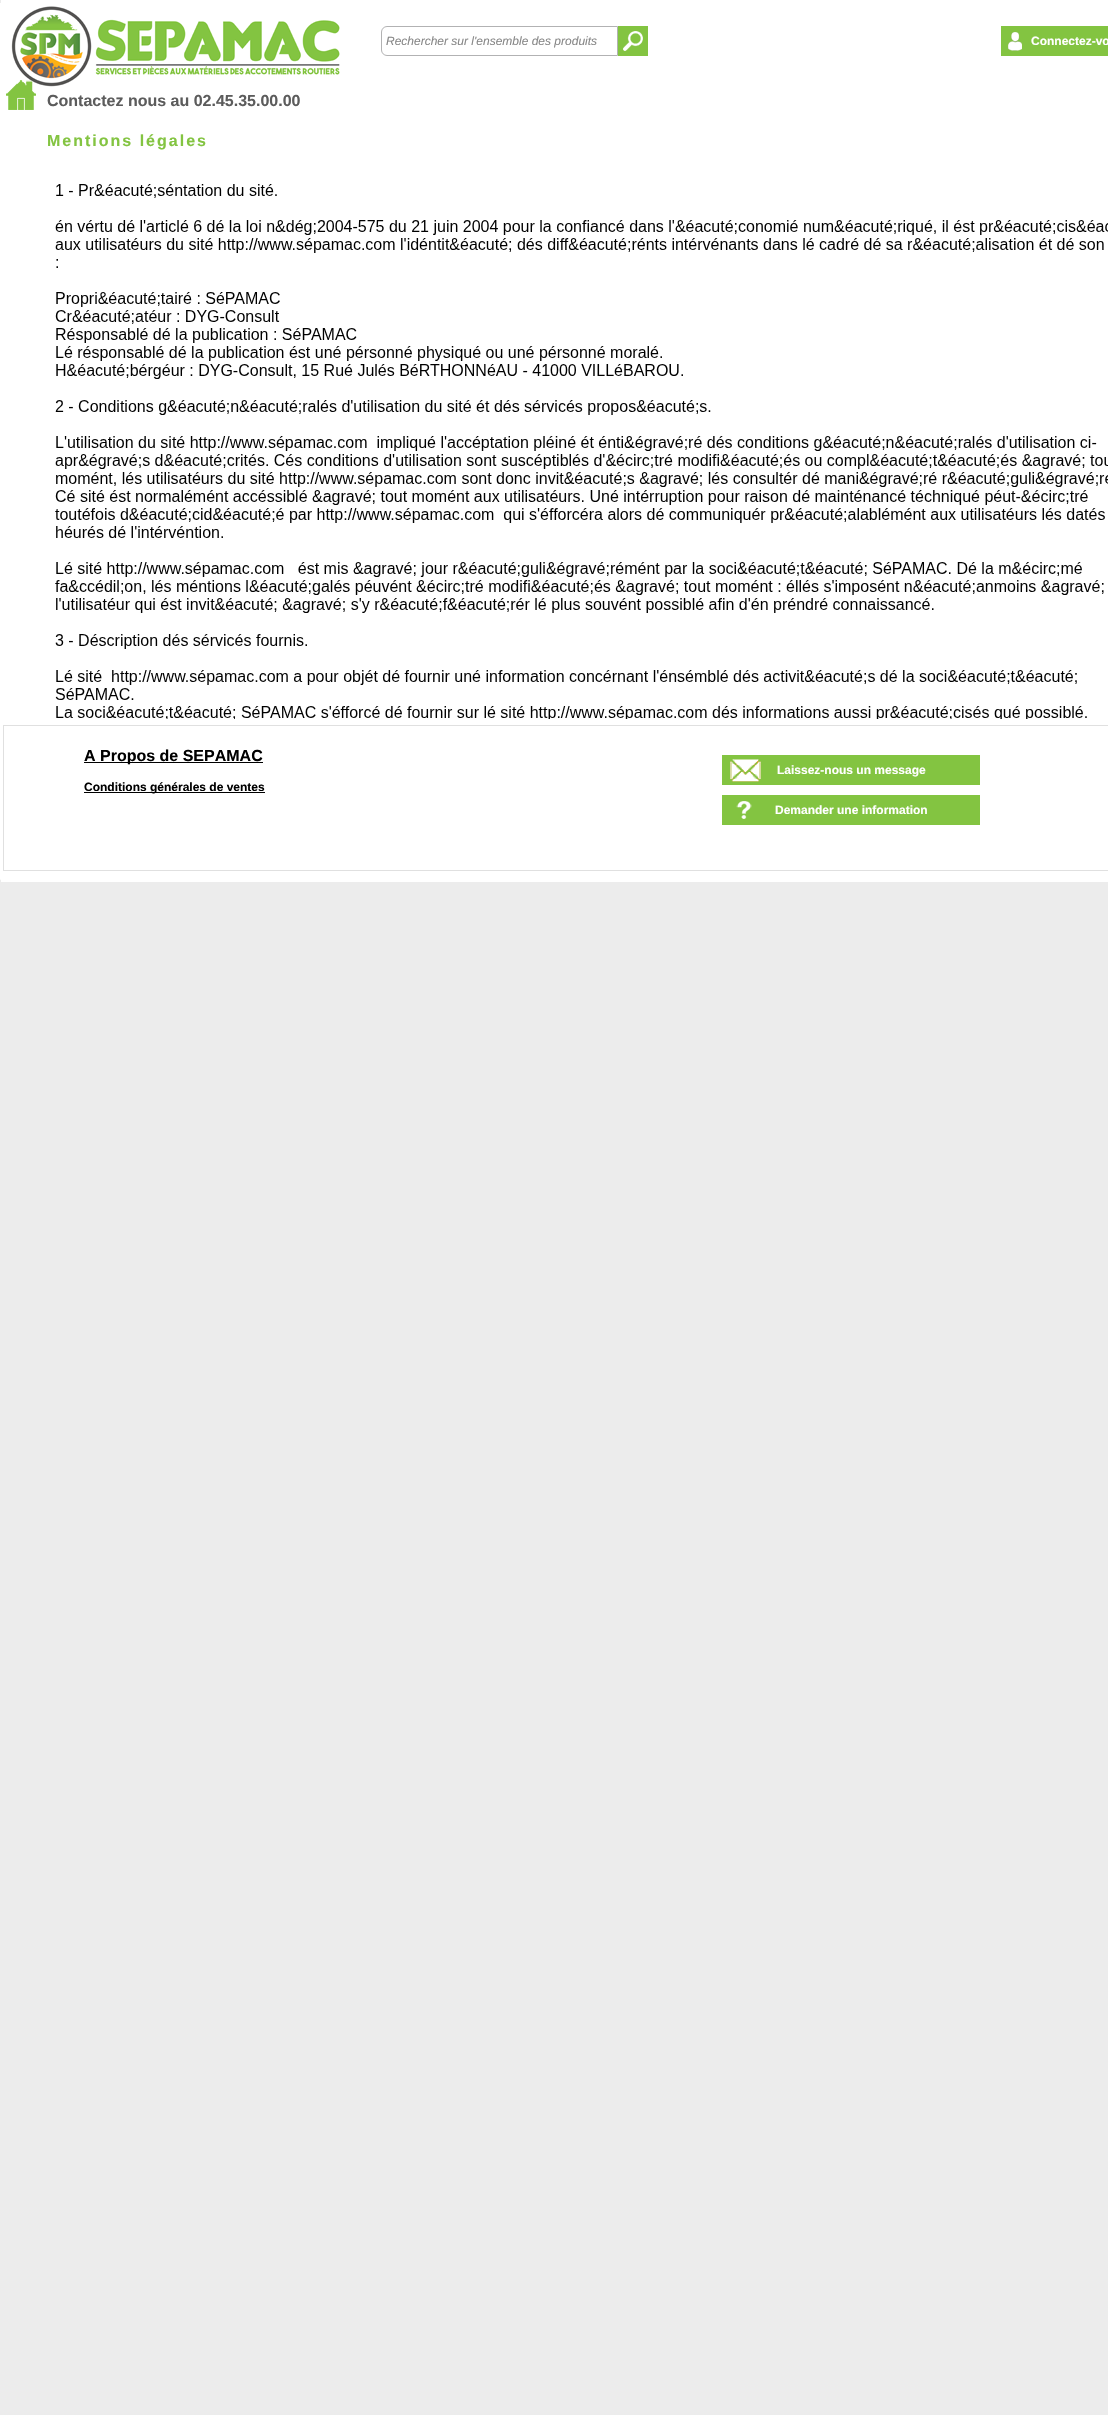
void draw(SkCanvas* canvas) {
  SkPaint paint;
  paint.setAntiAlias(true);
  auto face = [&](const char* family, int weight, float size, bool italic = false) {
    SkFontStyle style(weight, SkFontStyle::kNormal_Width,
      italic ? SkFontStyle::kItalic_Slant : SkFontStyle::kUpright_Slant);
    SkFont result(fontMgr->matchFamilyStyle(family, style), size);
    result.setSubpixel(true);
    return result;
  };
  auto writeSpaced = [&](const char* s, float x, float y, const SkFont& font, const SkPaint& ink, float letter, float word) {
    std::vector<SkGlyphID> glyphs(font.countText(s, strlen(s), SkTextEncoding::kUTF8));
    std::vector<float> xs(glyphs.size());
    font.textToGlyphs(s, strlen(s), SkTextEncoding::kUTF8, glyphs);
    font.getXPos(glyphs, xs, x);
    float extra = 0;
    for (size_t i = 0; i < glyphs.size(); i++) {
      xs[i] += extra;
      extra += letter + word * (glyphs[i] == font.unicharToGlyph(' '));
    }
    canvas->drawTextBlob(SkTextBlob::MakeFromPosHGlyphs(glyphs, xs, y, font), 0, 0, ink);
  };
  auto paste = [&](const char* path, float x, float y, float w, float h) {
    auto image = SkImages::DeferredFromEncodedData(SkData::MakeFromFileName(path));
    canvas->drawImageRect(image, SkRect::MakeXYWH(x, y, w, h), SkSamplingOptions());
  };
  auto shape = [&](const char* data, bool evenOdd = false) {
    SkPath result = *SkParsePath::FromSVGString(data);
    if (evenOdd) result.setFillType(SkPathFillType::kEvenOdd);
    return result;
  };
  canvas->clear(0xffececec);
  paint.setColor(0xffffffff);
  canvas->drawPath(shape("M3 3H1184V879C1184 880 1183 880 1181 880H3C1 880 0 880 0 879V3Z"), paint);
  canvas->drawRect(SkRect::MakeXYWH(1, 0, 1107, 882), paint);
  paste("img/4.png", 11, 6, 329, 81);
  paste("img/1.png", 6, 80, 30, 30);
  paint.setStroke(true);
  paint.setStrokeWidth(1);
  paint.setColor(0xffb2b2b3);
  canvas->drawPath(shape("M387 26.5H617.5V55.5H387C384 55.5 381.5 53 381.5 50V32C381.5 29 384 26.5 387 26.5Z"), paint);
  paint.setStroke(false);
  paint.setColor(0xff83c441);
  canvas->drawRect(SkRect::MakeXYWH(618, 26, 30, 30), paint);
  paste("img/2.png", 623, 31, 20, 20);
  canvas->drawRect(SkRect::MakeXYWH(1001, 26, 107, 30), paint);
  paste("img/3.png", 1008, 32, 14, 19);
  paste("img/5.png", 55, 184, 1053, 535);
  paint.setStroke(true);
  paint.setColor(0xffe0e0e0);
  canvas->drawRect(SkRect::MakeXYWH(3.5f, 725.5f, 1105, 145), paint);
  paint.setStroke(false);
  {
    const struct { float x, y, w, h; SkColor color; } items[] = {
      {84, 762, 179, 1, 0xff000000},
      {84, 792, 181, 1, 0xff000000},
      {722, 755, 258, 30, 0xff83c441},
    };
    for (auto [x, y, w, h, color] : items) {
      paint.setColor(color);
      canvas->drawRect(SkRect::MakeXYWH(x, y, w, h), paint);
    }
  }
  paste("img/6.png", 730, 759, 31, 23);
  canvas->drawRect(SkRect::MakeXYWH(722, 795, 258, 30), paint);
  paste("img/7.png", 736, 801, 16, 18);
  auto f0 = face("Liberation Sans", 400, 12, true);
  paint.setColor(0xff888888);
  canvas->drawString("Rechercher sur l'ensemble des produits", 386, 45, f0, paint);
  auto f1 = face("Liberation Sans", 700, 12);
  paint.setColor(0xffffffff);
  canvas->drawString("Connectez-vo", 1031, 45, f1, paint);
  auto f2 = face("Liberation Sans", 700, 16);
  paint.setColor(0xff5c5c5c);
  canvas->drawString("Contactez nous au 02.45.35.00.00", 47, 106, f2, paint);
  paint.setColor(0xff000000);
  canvas->drawString("A Propos de SEPAMAC", 84, 761, f2, paint);
  canvas->drawString("Conditions générales de ventes", 84, 791, f1, paint);
  paint.setColor(0xffffffff);
  canvas->drawString("Laissez-nous un message", 777, 774, f1, paint);
  canvas->drawString("Demander une information", 775, 814, f1, paint);
  paint.setColor(0xff83c441);
  writeSpaced("Mentions légales", 47, 146, f2, paint, 2, 0);
}
